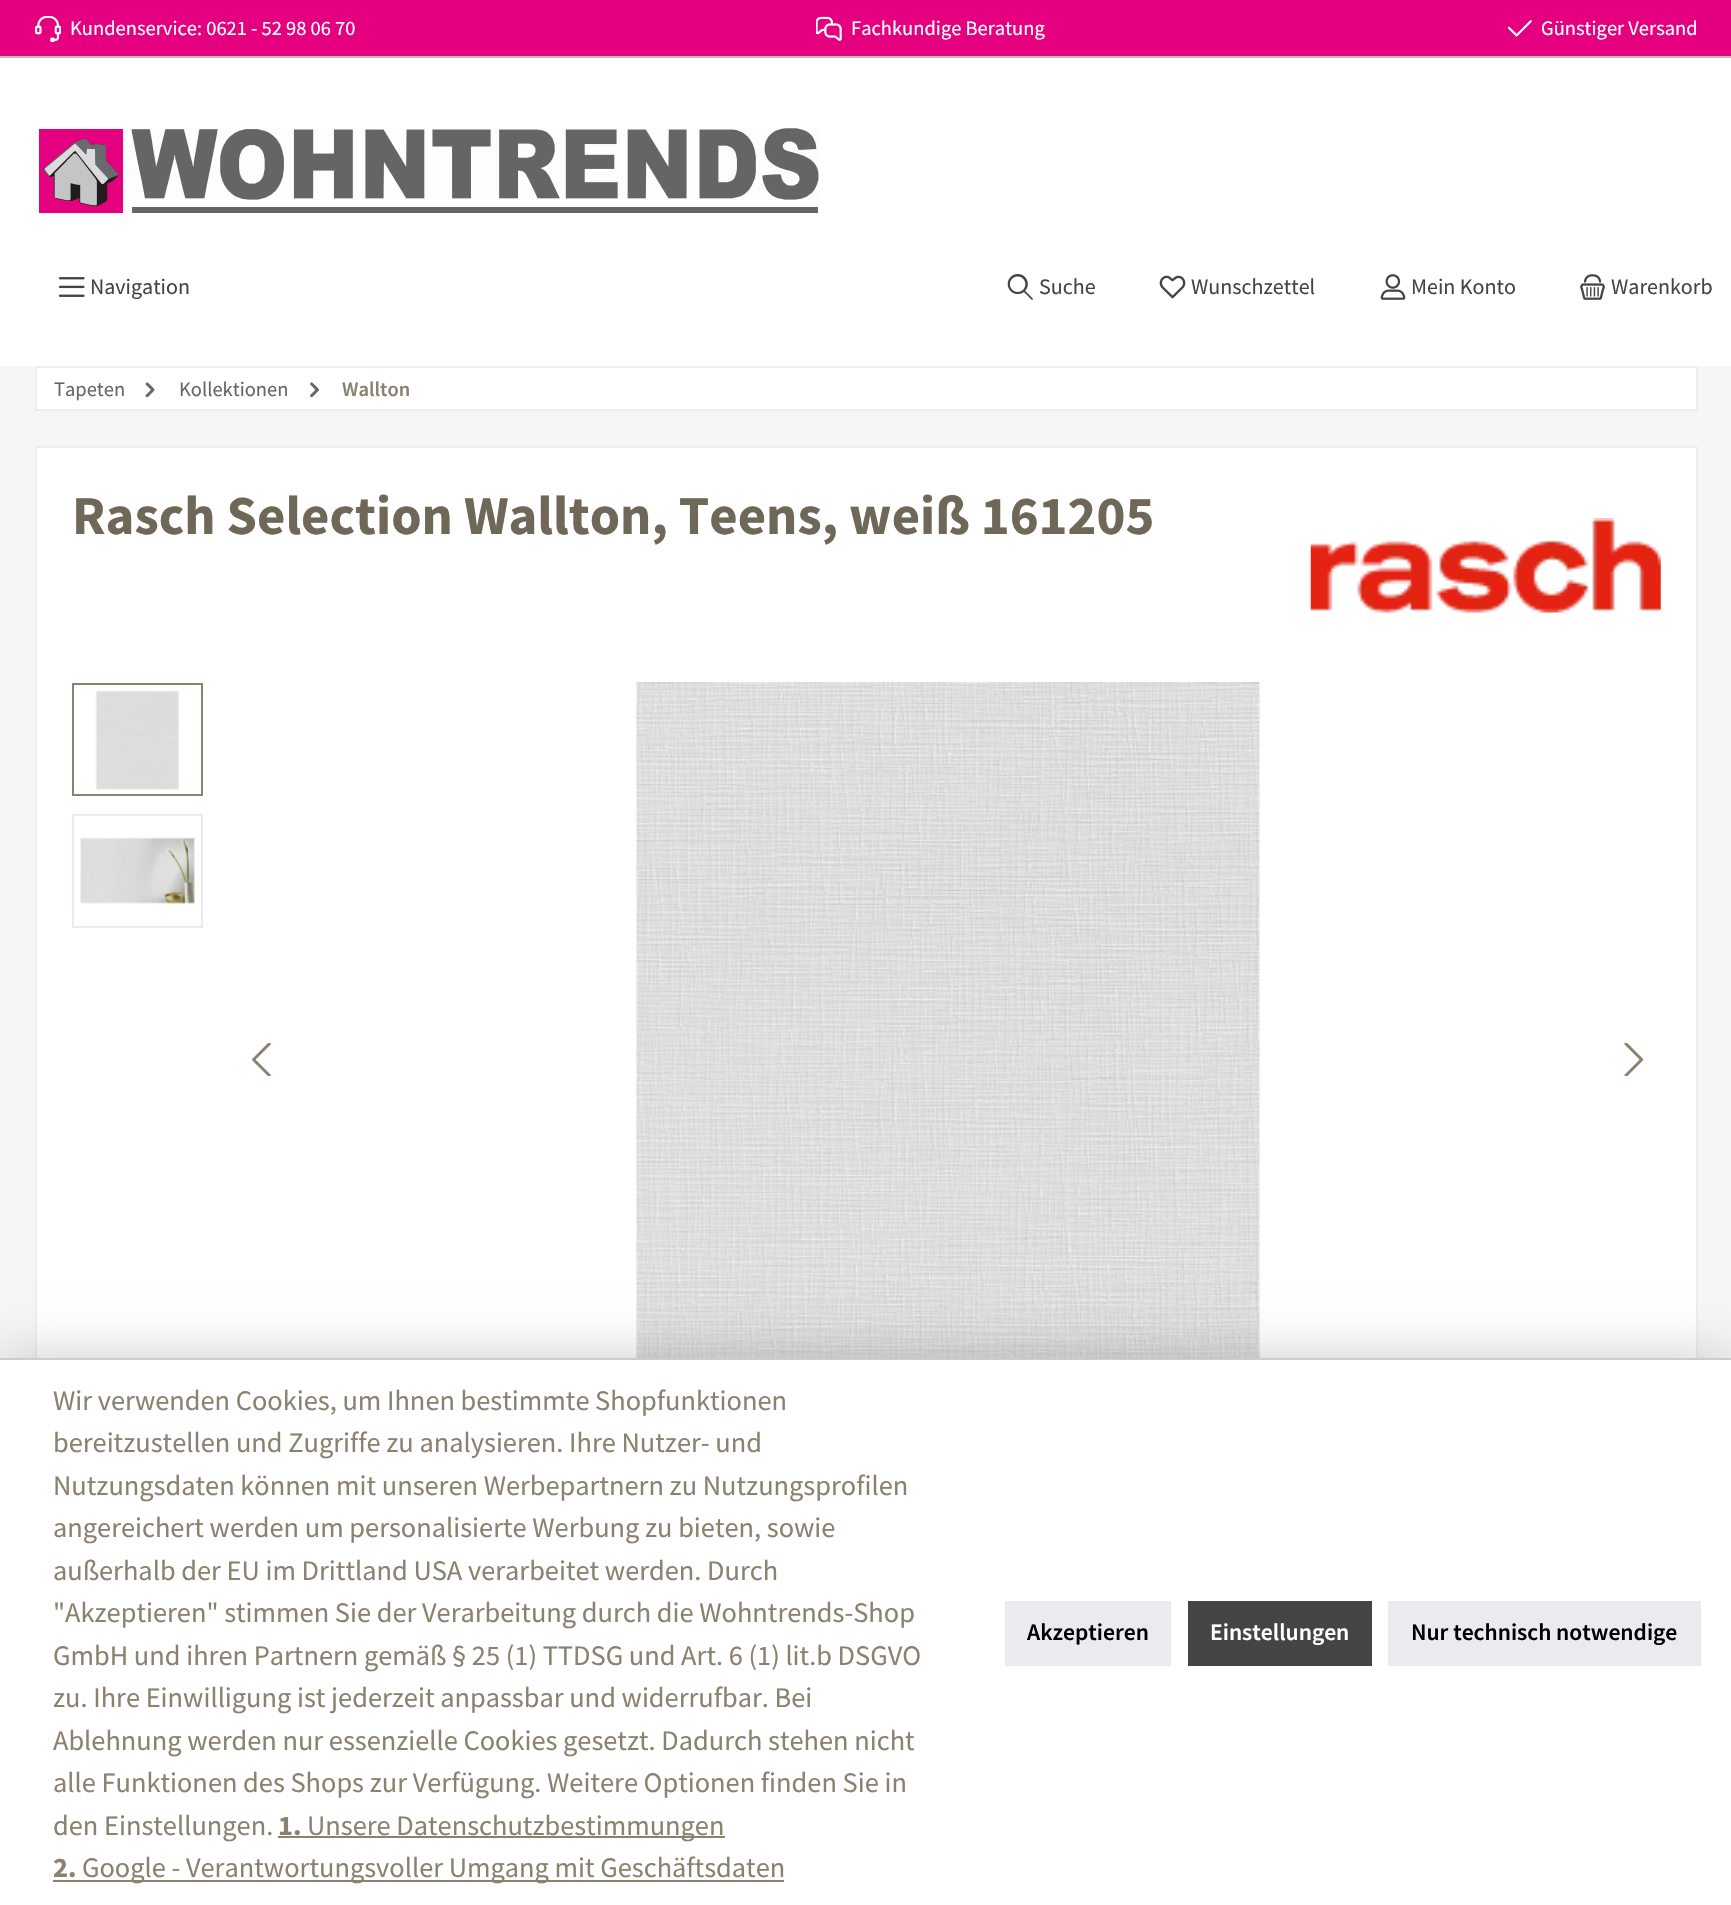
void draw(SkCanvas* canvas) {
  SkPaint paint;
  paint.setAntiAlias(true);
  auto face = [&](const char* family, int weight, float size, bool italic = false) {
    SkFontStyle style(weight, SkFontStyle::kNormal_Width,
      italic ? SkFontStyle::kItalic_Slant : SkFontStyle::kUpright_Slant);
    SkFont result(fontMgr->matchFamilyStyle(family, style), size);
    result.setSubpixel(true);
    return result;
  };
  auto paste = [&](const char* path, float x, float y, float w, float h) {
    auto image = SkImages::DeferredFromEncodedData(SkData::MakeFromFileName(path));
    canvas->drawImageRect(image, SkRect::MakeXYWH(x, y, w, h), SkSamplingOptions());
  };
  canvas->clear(0xffffffff);
  paint.setColor(0xffe4007f);
  canvas->drawRect(SkRect::MakeXYWH(0, 0, 1731, 56), paint);
  paint.setColor(0xffc3beb3);
  canvas->drawRect(SkRect::MakeXYWH(0, 56, 1731, 2), paint);
  paste("img/1.png", 35, 16, 26, 26);
  paste("img/2.png", 816, 16, 26, 25);
  paste("img/3.png", 1507, 20, 25, 17);
  paste("img/4.png", 39, 128, 780, 85);
  paste("img/5.png", 58, 277, 27, 20);
  paste("img/6.png", 1007, 274, 26, 26);
  paste("img/7.png", 1159, 275, 27, 24);
  paste("img/8.png", 1380, 274, 26, 26);
  paste("img/9.png", 1580, 274, 25, 26);
  paint.setColor(0xfff6f6f6);
  canvas->drawRect(SkRect::MakeXYWH(0, 366, 1731, 992), paint);
  paint.setColor(0xffffffff);
  canvas->drawRect(SkRect::MakeXYWH(36, 367, 1661, 43), paint);
  paint.setStroke(true);
  paint.setStrokeWidth(2);
  paint.setColor(0xffeeeeee);
  canvas->drawRect(SkRect::MakeXYWH(36, 367, 1661, 43), paint);
  paste("img/10.png", 145, 382, 10, 16);
  paste("img/11.png", 310, 382, 9, 16);
  paint.setStroke(false);
  {
    const struct { float x, y, w, h; SkColor color; } items[] = {
      {37, 448, 1659, 910, 0xffffffff},
      {35, 446, 1663, 2, 0xffeeeeee},
      {1696, 446, 2, 912, 0xffeeeeee},
      {35, 446, 2, 912, 0xffeeeeee},
    };
    for (auto [x, y, w, h, color] : items) {
      paint.setColor(color);
      canvas->drawRect(SkRect::MakeXYWH(x, y, w, h), paint);
    }
  }
  paste("img/12.png", 1310, 518, 351, 95);
  paint.setStroke(true);
  paint.setColor(0xff8b816f);
  canvas->drawRect(SkRect::MakeXYWH(73, 684, 129, 111), paint);
  paste("img/13.png", 95, 690, 84, 100);
  paint.setColor(0xffeaeaf0);
  canvas->drawRect(SkRect::MakeXYWH(73, 815, 129, 112), paint);
  paste("img/14.png", 80, 837, 115, 67);
  paste("img/15.png", 636, 682, 625, 676);
  paste("img/16.png", 252, 1043, 19, 33);
  paste("img/17.png", 1624, 1043, 20, 33);
  paint.setStroke(false);
  paint.setColor(0x33000000);
  paint.setMaskFilter(SkMaskFilter::MakeBlur(kNormal_SkBlurStyle, 26));
  canvas->drawRect(SkRect::MakeXYWH(0, 1358, 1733, 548), paint);
  paint.setMaskFilter(nullptr);
  {
    const struct { float x, y, w, h; SkColor color; } items[] = {
      {0, 1360, 1731, 545, 0xffffffff},
      {0, 1358, 1731, 2, 0xffcccccc},
      {278, 1836, 447, 2, 0xff8b816f},
      {53, 1880, 731, 2, 0xff8b816f},
      {1005, 1601, 166, 65, 0xffeaeaf0},
      {1188, 1601, 184, 65, 0xff444444},
      {1388, 1601, 313, 65, 0xffeaeaf0},
    };
    for (auto [x, y, w, h, color] : items) {
      paint.setColor(color);
      canvas->drawRect(SkRect::MakeXYWH(x, y, w, h), paint);
    }
  }
  auto f0 = face("Source Sans Pro", 400, 20.5f);
  paint.setColor(0xffffffff);
  {
    const struct { const char* s; float x, y; } items[] = {
      {"Kundenservice: 0621 - 52 98 06 70", 70, 35},
      {"Fachkundige Beratung", 851, 35},
      {"Günstiger Versand", 1541, 35},
    };
    for (auto [s, x, y] : items) {
      canvas->drawString(s, x, y, f0, paint);
    }
  }
  auto f1 = face("Source Sans Pro", 400, 22);
  paint.setColor(0xff444444);
  {
    const struct { const char* s; float x, y; } items[] = {
      {"Navigation", 90, 294},
      {"Suche", 1039, 294},
      {"Wunschzettel", 1191, 294},
      {"Mein Konto", 1411, 294},
      {"Warenkorb", 1611, 294},
    };
    for (auto [s, x, y] : items) {
      canvas->drawString(s, x, y, f1, paint);
    }
  }
  paint.setColor(0xff666666);
  canvas->drawString("Tapeten", 54, 396, f0, paint);
  canvas->drawString("Kollektionen", 179, 396, f0, paint);
  auto f2 = face("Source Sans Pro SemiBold", 600, 20.5f);
  paint.setColor(0xff8b816f);
  canvas->drawString("Wallton", 342, 396, f2, paint);
  auto f3 = face("Source Sans Pro", 700, 54.8f);
  paint.setColor(0xff6f6758);
  canvas->drawString("Rasch Selection Wallton, Teens, weiß 161205", 72, 534, f3, paint);
  auto f4 = face("Source Sans Pro", 400, 28.35f);
  paint.setColor(0xff8b816f);
  {
    const struct { const char* s; float x, y; } items[] = {
      {"Wir verwenden Cookies, um Ihnen bestimmte Shopfunktionen", 53, 1410},
      {"bereitzustellen und Zugriffe zu analysieren. Ihre Nutzer- und", 53, 1452},
      {"Nutzungsdaten können mit unseren Werbepartnern zu Nutzungsprofilen", 53, 1495},
      {"angereichert werden um personalisierte Werbung zu bieten, sowie", 53, 1537},
      {"außerhalb der EU im Drittland USA verarbeitet werden. Durch", 53, 1580},
      {"\"Akzeptieren\" stimmen Sie der Verarbeitung durch die Wohntrends-Shop", 53, 1622},
      {"GmbH und ihren Partnern gemäß § 25 (1) TTDSG und Art. 6 (1) lit.b DSGVO", 53, 1665},
      {"zu. Ihre Einwilligung ist jederzeit anpassbar und widerrufbar. Bei", 53, 1707},
      {"Ablehnung werden nur essenzielle Cookies gesetzt. Dadurch stehen nicht", 53, 1750},
      {"alle Funktionen des Shops zur Verfügung. Weitere Optionen finden Sie in", 53, 1792},
      {"den Einstellungen.", 53, 1835},
    };
    for (auto [s, x, y] : items) {
      canvas->drawString(s, x, y, f4, paint);
    }
  }
  auto f5 = face("Source Sans Pro", 700, 28.35f);
  canvas->drawString("1.", 278, 1835, f5, paint);
  canvas->drawString("Unsere Datenschutzbestimmungen", 307, 1835, f4, paint);
  canvas->drawString("2.", 53, 1877, f5, paint);
  canvas->drawString("Google - Verantwortungsvoller Umgang mit Geschäftsdaten", 82, 1877, f4, paint);
  auto f6 = face("Source Sans Pro SemiBold", 600, 23.6f);
  paint.setColor(0xff000000);
  canvas->drawString("Akzeptieren", 1027, 1640, f6, paint);
  paint.setColor(0xffffffff);
  canvas->drawString("Einstellungen", 1210, 1640, f6, paint);
  paint.setColor(0xff000000);
  canvas->drawString("Nur technisch notwendige", 1411, 1640, f6, paint);
}
